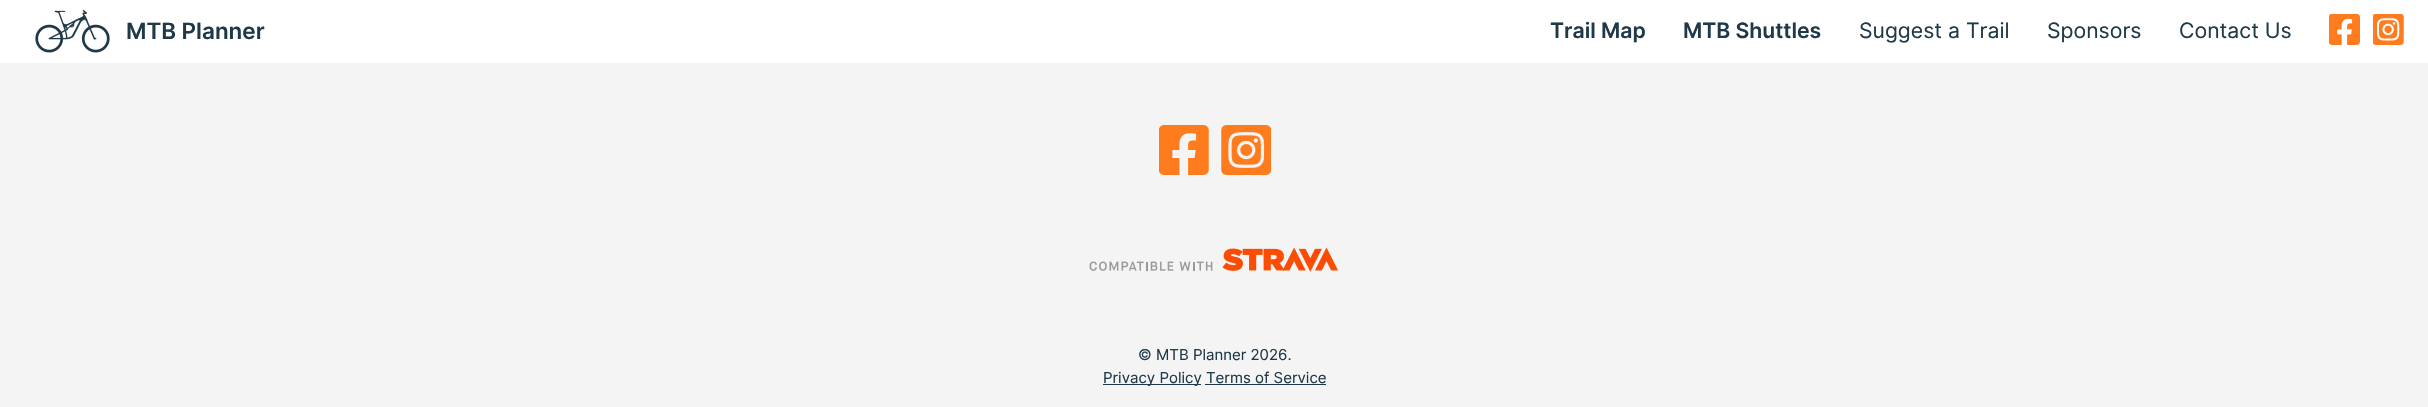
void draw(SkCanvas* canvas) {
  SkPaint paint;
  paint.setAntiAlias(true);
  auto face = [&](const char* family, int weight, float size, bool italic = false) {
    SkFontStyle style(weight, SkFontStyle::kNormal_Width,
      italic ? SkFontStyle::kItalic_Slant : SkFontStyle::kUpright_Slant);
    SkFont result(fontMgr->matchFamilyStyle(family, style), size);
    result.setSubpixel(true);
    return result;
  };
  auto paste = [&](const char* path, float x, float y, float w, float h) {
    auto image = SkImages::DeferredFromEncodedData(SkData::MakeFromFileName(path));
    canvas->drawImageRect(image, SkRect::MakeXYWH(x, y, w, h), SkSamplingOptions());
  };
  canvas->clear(0xffffffff);
  paste("img/1.png", 35, 10, 75, 43);
  paste("img/2.png", 2329, 14, 31, 31);
  paste("img/3.png", 2373, 14, 31, 31);
  paint.setColor(0xfff4f4f4);
  canvas->drawRect(SkRect::MakeXYWH(0, 63, 2428, 344), paint);
  paste("img/4.png", 1159, 125, 50, 50);
  paste("img/5.png", 1221, 125, 50, 50);
  paste("img/6.png", 1089, 247, 249, 25);
  paint.setColor(0xff1f3948);
  canvas->drawRect(SkRect::MakeXYWH(1103, 384, 98, 1), paint);
  canvas->drawRect(SkRect::MakeXYWH(1205, 384, 121, 1), paint);
  auto f0 = face("Inter", 600, 22.5f);
  canvas->drawString("MTB Planner", 126, 39, f0, paint);
  auto f1 = face("Inter", 600, 21.25f);
  canvas->drawString("Trail Map", 1550, 38, f1, paint);
  canvas->drawString("MTB Shuttles", 1683, 38, f1, paint);
  auto f2 = face("Inter", 400, 21.25f);
  {
    const struct { const char* s; float x, y; } items[] = {
      {"Suggest a Trail", 1859, 38},
      {"Sponsors", 2047, 38},
      {"Contact Us", 2179, 38},
    };
    for (auto [s, x, y] : items) {
      canvas->drawString(s, x, y, f2, paint);
    }
  }
  auto f3 = face("Inter", 400, 15);
  canvas->drawString("© MTB Planner 2026.", 1138, 360, f3, paint);
  canvas->drawString("Privacy Policy Terms of Service", 1103, 383, f3, paint);
}
